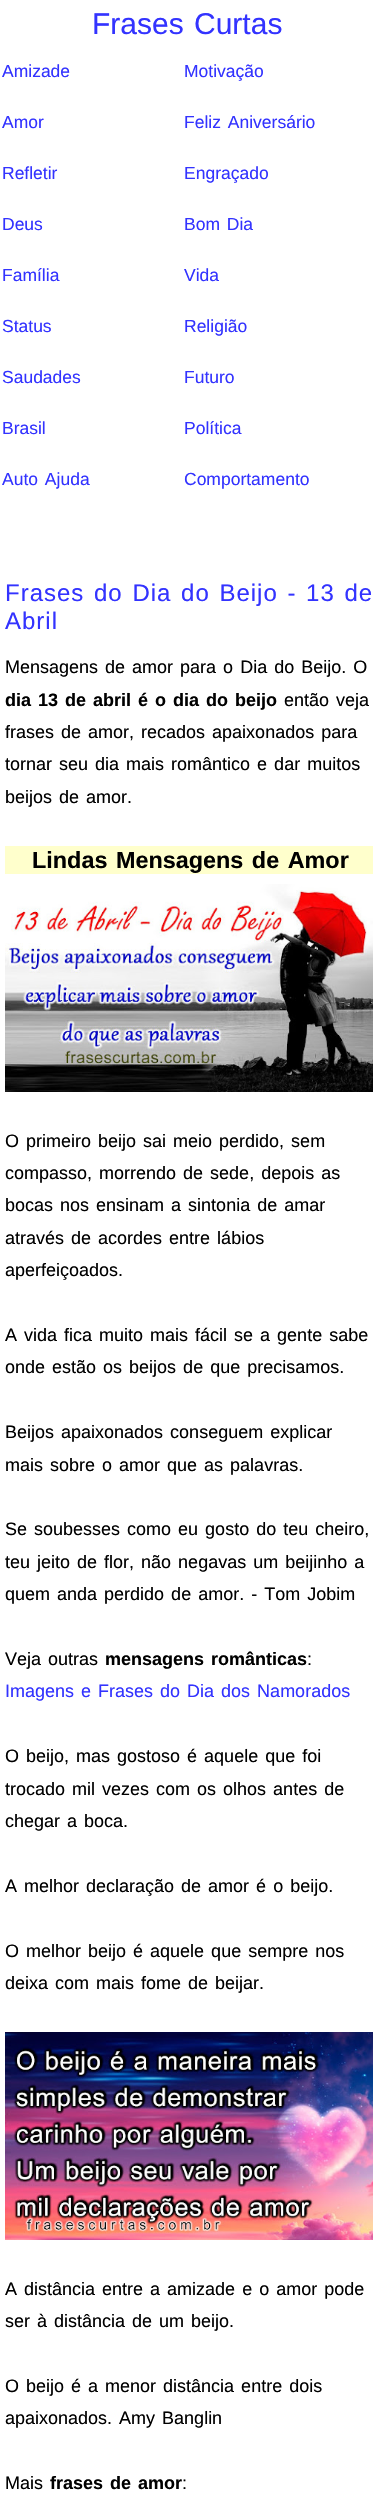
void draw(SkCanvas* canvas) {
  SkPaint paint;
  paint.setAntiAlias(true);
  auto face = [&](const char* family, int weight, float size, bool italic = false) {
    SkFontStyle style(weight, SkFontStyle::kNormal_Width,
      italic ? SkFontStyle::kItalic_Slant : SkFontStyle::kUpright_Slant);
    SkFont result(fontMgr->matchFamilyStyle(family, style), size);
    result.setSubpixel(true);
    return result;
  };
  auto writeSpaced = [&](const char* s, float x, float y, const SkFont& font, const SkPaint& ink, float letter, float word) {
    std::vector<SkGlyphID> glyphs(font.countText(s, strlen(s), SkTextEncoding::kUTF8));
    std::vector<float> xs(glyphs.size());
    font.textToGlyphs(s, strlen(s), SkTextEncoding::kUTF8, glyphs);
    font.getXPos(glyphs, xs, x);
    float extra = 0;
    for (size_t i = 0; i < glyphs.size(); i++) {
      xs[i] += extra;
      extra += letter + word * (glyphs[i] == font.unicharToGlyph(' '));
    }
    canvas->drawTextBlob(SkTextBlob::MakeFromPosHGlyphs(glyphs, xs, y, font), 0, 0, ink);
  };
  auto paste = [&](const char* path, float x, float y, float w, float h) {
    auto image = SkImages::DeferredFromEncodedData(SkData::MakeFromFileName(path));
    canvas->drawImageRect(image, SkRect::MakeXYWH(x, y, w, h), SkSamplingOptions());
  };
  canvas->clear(0xffffffff);
  paint.setColor(0xffffffcc);
  canvas->drawRect(SkRect::MakeXYWH(5, 846, 368, 28), paint);
  paste("img/1.png", 5, 884, 368, 208);
  paste("img/2.png", 5, 2032, 368, 208);
  auto f0 = face("Liberation Sans", 400, 30);
  paint.setColor(0xff3333ff);
  writeSpaced("Frases Curtas", 92, 34, f0, paint, 0, 2);
  auto f1 = face("Liberation Sans", 400, 17.5f);
  {
    const struct { const char* s; float x, y; } items[] = {
      {"Amizade", 2, 77},
      {"Motivação", 184, 77},
      {"Amor", 2, 128},
    };
    for (auto [s, x, y] : items) {
      canvas->drawString(s, x, y, f1, paint);
    }
  }
  writeSpaced("Feliz Aniversário", 184, 128, f1, paint, 0, 2);
  {
    const struct { const char* s; float x, y; } items[] = {
      {"Refletir", 2, 179},
      {"Engraçado", 184, 179},
      {"Deus", 2, 230},
    };
    for (auto [s, x, y] : items) {
      canvas->drawString(s, x, y, f1, paint);
    }
  }
  writeSpaced("Bom Dia", 184, 230, f1, paint, 0, 2);
  {
    const struct { const char* s; float x, y; } items[] = {
      {"Família", 2, 281},
      {"Vida", 184, 281},
      {"Status", 2, 332},
      {"Religião", 184, 332},
      {"Saudades", 2, 383},
      {"Futuro", 184, 383},
      {"Brasil", 2, 434},
      {"Política", 184, 434},
    };
    for (auto [s, x, y] : items) {
      canvas->drawString(s, x, y, f1, paint);
    }
  }
  writeSpaced("Auto Ajuda", 2, 485, f1, paint, 0, 2);
  canvas->drawString("Comportamento", 184, 485, f1, paint);
  auto f2 = face("Liberation Sans", 400, 24);
  writeSpaced("Frases do Dia do Beijo - 13 de", 5, 601, f2, paint, 1, 2);
  writeSpaced("Abril", 5, 629, f2, paint, 1, 0);
  auto f3 = face("Liberation Sans", 400, 18);
  paint.setColor(0xff000000);
  writeSpaced("Mensagens de amor para o Dia do Beijo. O", 5, 673, f3, paint, 0, 2);
  auto f4 = face("Liberation Sans", 700, 18);
  writeSpaced("dia 13 de abril é o dia do beijo", 5, 706, f4, paint, 0, 2);
  {
    const struct { const char* s; float x, y; } items[] = {
      {"então veja", 284, 706},
      {"frases de amor, recados apaixonados para", 5, 738},
      {"tornar seu dia mais romântico e dar muitos", 5, 770},
      {"beijos de amor.", 5, 803},
    };
    for (auto [s, x, y] : items) {
      writeSpaced(s, x, y, f3, paint, 0, 2);
    }
  }
  auto f5 = face("Liberation Sans", 700, 23.4f);
  writeSpaced("Lindas Mensagens de Amor", 32, 868, f5, paint, 0, 2);
  {
    const struct { const char* s; float x, y; } items[] = {
      {"O primeiro beijo sai meio perdido, sem", 5, 1147},
      {"compasso, morrendo de sede, depois as", 5, 1179},
      {"bocas nos ensinam a sintonia de amar", 5, 1211},
      {"através de acordes entre lábios", 5, 1244},
    };
    for (auto [s, x, y] : items) {
      writeSpaced(s, x, y, f3, paint, 0, 2);
    }
  }
  canvas->drawString("aperfeiçoados.", 5, 1276, f3, paint);
  {
    const struct { const char* s; float x, y; } items[] = {
      {"A vida fica muito mais fácil se a gente sabe", 5, 1341},
      {"onde estão os beijos de que precisamos.", 5, 1373},
      {"Beijos apaixonados conseguem explicar", 5, 1438},
      {"mais sobre o amor que as palavras.", 5, 1471},
      {"Se soubesses como eu gosto do teu cheiro,", 5, 1535},
      {"teu jeito de flor, não negavas um beijinho a", 5, 1568},
      {"quem anda perdido de amor. - Tom Jobim", 5, 1600},
      {"Veja outras", 5, 1665},
    };
    for (auto [s, x, y] : items) {
      writeSpaced(s, x, y, f3, paint, 0, 2);
    }
  }
  writeSpaced("mensagens românticas", 105, 1665, f4, paint, 0, 2);
  canvas->drawString(":", 307, 1665, f3, paint);
  paint.setColor(0xff3333ff);
  writeSpaced("Imagens e Frases do Dia dos Namorados", 5, 1697, f3, paint, 0, 2);
  paint.setColor(0xff000000);
  {
    const struct { const char* s; float x, y; } items[] = {
      {"O beijo, mas gostoso é aquele que foi", 5, 1762},
      {"trocado mil vezes com os olhos antes de", 5, 1795},
      {"chegar a boca.", 5, 1827},
      {"A melhor declaração de amor é o beijo.", 5, 1892},
      {"O melhor beijo é aquele que sempre nos", 5, 1957},
      {"deixa com mais fome de beijar.", 5, 1989},
      {"A distância entre a amizade e o amor pode", 5, 2295},
      {"ser à distância de um beijo.", 5, 2327},
      {"O beijo é a menor distância entre dois", 5, 2392},
      {"apaixonados. Amy Banglin", 5, 2424},
    };
    for (auto [s, x, y] : items) {
      writeSpaced(s, x, y, f3, paint, 0, 2);
    }
  }
  canvas->drawString("Mais", 5, 2489, f3, paint);
  writeSpaced("frases de amor", 50, 2489, f4, paint, 0, 2);
  canvas->drawString(":", 182, 2489, f3, paint);
}
